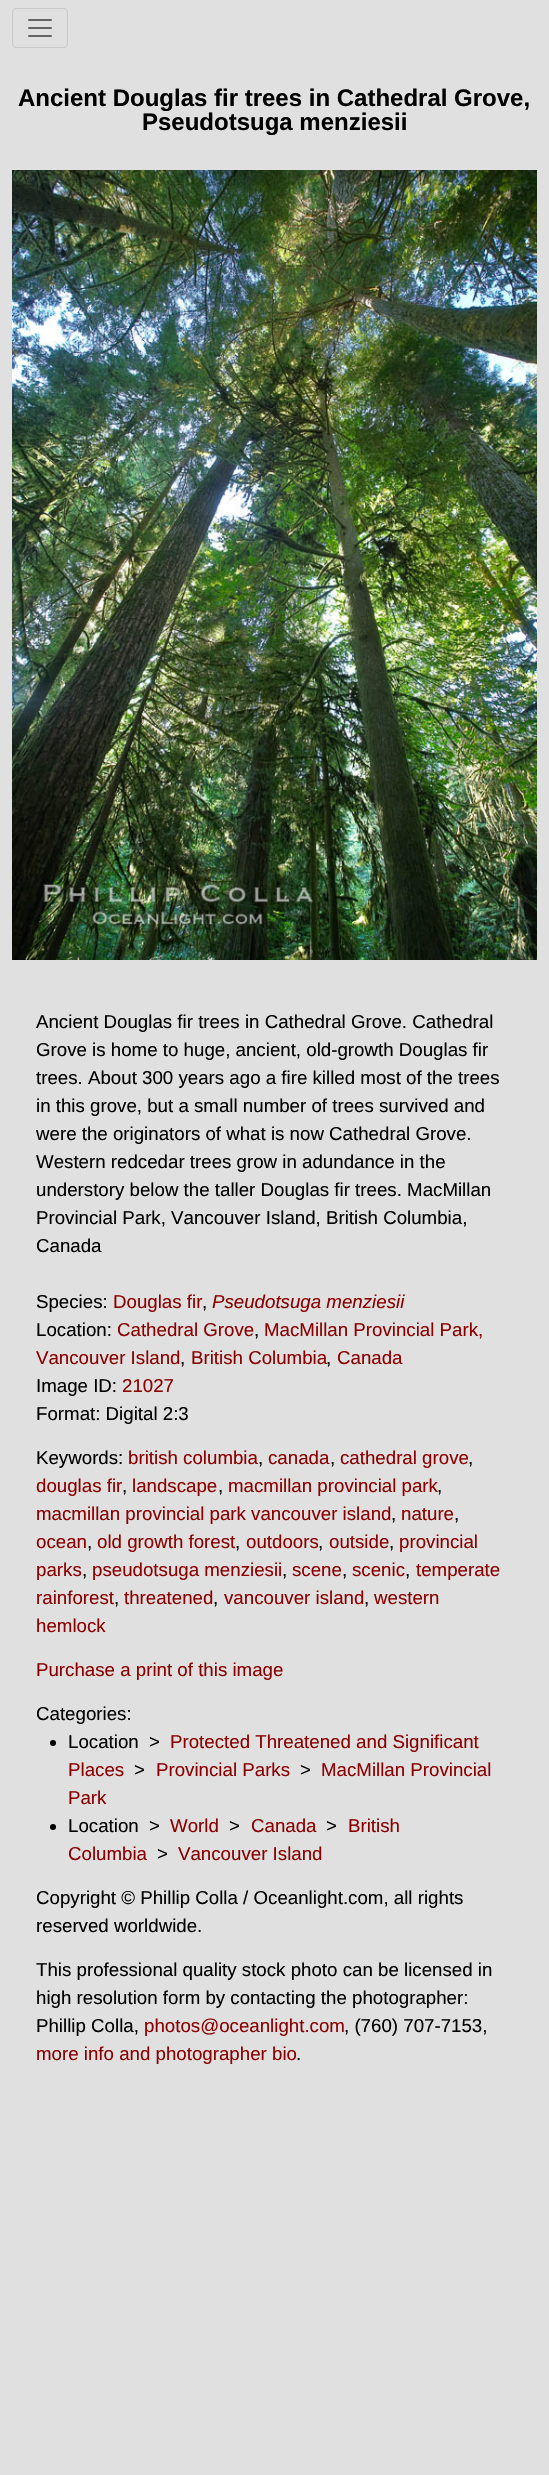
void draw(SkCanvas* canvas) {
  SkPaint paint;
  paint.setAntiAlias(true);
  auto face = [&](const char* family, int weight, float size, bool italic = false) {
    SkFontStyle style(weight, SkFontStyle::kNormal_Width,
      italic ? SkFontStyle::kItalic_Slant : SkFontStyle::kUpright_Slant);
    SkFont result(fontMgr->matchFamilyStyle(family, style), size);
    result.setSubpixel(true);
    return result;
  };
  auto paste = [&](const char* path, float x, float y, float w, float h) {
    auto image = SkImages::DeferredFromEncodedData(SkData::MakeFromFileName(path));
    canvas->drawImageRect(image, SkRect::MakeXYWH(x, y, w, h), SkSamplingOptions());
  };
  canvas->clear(0xffe0e0e0);
  paint.setStroke(true);
  paint.setStrokeWidth(1);
  paint.setColor(0xffcacaca);
  canvas->drawRoundRect(SkRect::MakeXYWH(12.5f, 8.5f, 55, 39), 3.5f, 3.5f, paint);
  paste("img/1.png", 28, 19, 24, 18);
  paste("img/2.png", 12, 170, 525, 790);
  paint.setStroke(false);
  paint.setColor(0xff000000);
  canvas->drawCircle(53, 1743, 3, paint);
  canvas->drawCircle(53, 1827, 3, paint);
  auto f0 = face("Liberation Sans", 700, 24);
  canvas->drawString("Ancient Douglas fir trees in Cathedral Grove,", 18, 106, f0, paint);
  canvas->drawString("Pseudotsuga menziesii", 142, 130, f0, paint);
  auto f1 = face("Liberation Sans", 400, 18.7f);
  {
    const struct { const char* s; float x, y; } items[] = {
      {"Ancient Douglas fir trees in Cathedral Grove. Cathedral", 36, 1028},
      {"Grove is home to huge, ancient, old-growth Douglas fir", 36, 1056},
      {"trees. About 300 years ago a fire killed most of the trees", 36, 1084},
      {"in this grove, but a small number of trees survived and", 36, 1112},
      {"were the originators of what is now Cathedral Grove.", 36, 1140},
      {"Western redcedar trees grow in adundance in the", 36, 1168},
      {"understory below the taller Douglas fir trees. MacMillan", 36, 1196},
      {"Provincial Park, Vancouver Island, British Columbia,", 36, 1224},
      {"Canada", 36, 1252},
      {"Species:", 36, 1308},
    };
    for (auto [s, x, y] : items) {
      canvas->drawString(s, x, y, f1, paint);
    }
  }
  paint.setColor(0xff8b0000);
  canvas->drawString("Douglas fir", 113, 1308, f1, paint);
  paint.setColor(0xff000000);
  canvas->drawString(",", 202, 1308, f1, paint);
  auto f2 = face("Liberation Sans", 400, 18.7f, true);
  paint.setColor(0xff8b0000);
  canvas->drawString("Pseudotsuga menziesii", 212, 1308, f2, paint);
  paint.setColor(0xff000000);
  canvas->drawString("Location:", 36, 1336, f1, paint);
  paint.setColor(0xff8b0000);
  canvas->drawString("Cathedral Grove", 117, 1336, f1, paint);
  paint.setColor(0xff000000);
  canvas->drawString(",", 254, 1336, f1, paint);
  paint.setColor(0xff8b0000);
  canvas->drawString("MacMillan Provincial Park,", 264, 1336, f1, paint);
  canvas->drawString("Vancouver Island", 36, 1364, f1, paint);
  paint.setColor(0xff000000);
  canvas->drawString(",", 180, 1364, f1, paint);
  paint.setColor(0xff8b0000);
  canvas->drawString("British Columbia", 191, 1364, f1, paint);
  paint.setColor(0xff000000);
  canvas->drawString(",", 326, 1364, f1, paint);
  paint.setColor(0xff8b0000);
  canvas->drawString("Canada", 337, 1364, f1, paint);
  paint.setColor(0xff000000);
  canvas->drawString("Image ID:", 36, 1392, f1, paint);
  paint.setColor(0xff8b0000);
  canvas->drawString("21027", 122, 1392, f1, paint);
  paint.setColor(0xff000000);
  canvas->drawString("Format: Digital 2:3", 36, 1420, f1, paint);
  canvas->drawString("Keywords:", 36, 1464, f1, paint);
  paint.setColor(0xff8b0000);
  canvas->drawString("british columbia", 128, 1464, f1, paint);
  paint.setColor(0xff000000);
  canvas->drawString(",", 258, 1464, f1, paint);
  paint.setColor(0xff8b0000);
  canvas->drawString("canada", 268, 1464, f1, paint);
  paint.setColor(0xff000000);
  canvas->drawString(",", 330, 1464, f1, paint);
  paint.setColor(0xff8b0000);
  canvas->drawString("cathedral grove", 340, 1464, f1, paint);
  paint.setColor(0xff000000);
  canvas->drawString(",", 468, 1464, f1, paint);
  paint.setColor(0xff8b0000);
  canvas->drawString("douglas fir", 36, 1492, f1, paint);
  paint.setColor(0xff000000);
  canvas->drawString(",", 122, 1492, f1, paint);
  paint.setColor(0xff8b0000);
  canvas->drawString("landscape", 132, 1492, f1, paint);
  paint.setColor(0xff000000);
  canvas->drawString(",", 218, 1492, f1, paint);
  paint.setColor(0xff8b0000);
  canvas->drawString("macmillan provincial park", 228, 1492, f1, paint);
  paint.setColor(0xff000000);
  canvas->drawString(",", 437, 1492, f1, paint);
  paint.setColor(0xff8b0000);
  canvas->drawString("macmillan provincial park vancouver island", 36, 1520, f1, paint);
  paint.setColor(0xff000000);
  canvas->drawString(",", 391, 1520, f1, paint);
  paint.setColor(0xff8b0000);
  canvas->drawString("nature", 401, 1520, f1, paint);
  paint.setColor(0xff000000);
  canvas->drawString(",", 454, 1520, f1, paint);
  paint.setColor(0xff8b0000);
  canvas->drawString("ocean", 36, 1548, f1, paint);
  paint.setColor(0xff000000);
  canvas->drawString(",", 87, 1548, f1, paint);
  paint.setColor(0xff8b0000);
  canvas->drawString("old growth forest", 97, 1548, f1, paint);
  paint.setColor(0xff000000);
  canvas->drawString(",", 235, 1548, f1, paint);
  paint.setColor(0xff8b0000);
  canvas->drawString("outdoors", 246, 1548, f1, paint);
  paint.setColor(0xff000000);
  canvas->drawString(",", 318, 1548, f1, paint);
  paint.setColor(0xff8b0000);
  canvas->drawString("outside", 329, 1548, f1, paint);
  paint.setColor(0xff000000);
  canvas->drawString(",", 389, 1548, f1, paint);
  paint.setColor(0xff8b0000);
  canvas->drawString("provincial", 399, 1548, f1, paint);
  canvas->drawString("parks", 36, 1576, f1, paint);
  paint.setColor(0xff000000);
  canvas->drawString(",", 82, 1576, f1, paint);
  paint.setColor(0xff8b0000);
  canvas->drawString("pseudotsuga menziesii", 92, 1576, f1, paint);
  paint.setColor(0xff000000);
  canvas->drawString(",", 282, 1576, f1, paint);
  paint.setColor(0xff8b0000);
  canvas->drawString("scene", 292, 1576, f1, paint);
  paint.setColor(0xff000000);
  canvas->drawString(",", 342, 1576, f1, paint);
  paint.setColor(0xff8b0000);
  canvas->drawString("scenic", 352, 1576, f1, paint);
  paint.setColor(0xff000000);
  canvas->drawString(",", 405, 1576, f1, paint);
  paint.setColor(0xff8b0000);
  canvas->drawString("temperate", 416, 1576, f1, paint);
  canvas->drawString("rainforest", 36, 1604, f1, paint);
  paint.setColor(0xff000000);
  canvas->drawString(",", 114, 1604, f1, paint);
  paint.setColor(0xff8b0000);
  canvas->drawString("threatened", 124, 1604, f1, paint);
  paint.setColor(0xff000000);
  canvas->drawString(",", 213, 1604, f1, paint);
  paint.setColor(0xff8b0000);
  canvas->drawString("vancouver island", 224, 1604, f1, paint);
  paint.setColor(0xff000000);
  canvas->drawString(",", 364, 1604, f1, paint);
  paint.setColor(0xff8b0000);
  {
    const struct { const char* s; float x, y; } items[] = {
      {"western", 374, 1604},
      {"hemlock", 36, 1632},
      {"Purchase a print of this image", 36, 1676},
    };
    for (auto [s, x, y] : items) {
      canvas->drawString(s, x, y, f1, paint);
    }
  }
  paint.setColor(0xff000000);
  canvas->drawString("Categories:", 36, 1720, f1, paint);
  canvas->drawString("Location  >", 68, 1748, f1, paint);
  paint.setColor(0xff8b0000);
  canvas->drawString("Protected Threatened and Significant", 170, 1748, f1, paint);
  canvas->drawString("Places", 68, 1776, f1, paint);
  paint.setColor(0xff000000);
  canvas->drawString(">", 134, 1776, f1, paint);
  paint.setColor(0xff8b0000);
  canvas->drawString("Provincial Parks", 156, 1776, f1, paint);
  paint.setColor(0xff000000);
  canvas->drawString(">", 300, 1776, f1, paint);
  paint.setColor(0xff8b0000);
  canvas->drawString("MacMillan Provincial", 321, 1776, f1, paint);
  canvas->drawString("Park", 68, 1804, f1, paint);
  paint.setColor(0xff000000);
  canvas->drawString("Location  >", 68, 1832, f1, paint);
  paint.setColor(0xff8b0000);
  canvas->drawString("World", 170, 1832, f1, paint);
  paint.setColor(0xff000000);
  canvas->drawString(">", 229, 1832, f1, paint);
  paint.setColor(0xff8b0000);
  canvas->drawString("Canada", 251, 1832, f1, paint);
  paint.setColor(0xff000000);
  canvas->drawString(">", 326, 1832, f1, paint);
  paint.setColor(0xff8b0000);
  canvas->drawString("British", 348, 1832, f1, paint);
  canvas->drawString("Columbia", 68, 1860, f1, paint);
  paint.setColor(0xff000000);
  canvas->drawString(">", 157, 1860, f1, paint);
  paint.setColor(0xff8b0000);
  canvas->drawString("Vancouver Island", 178, 1860, f1, paint);
  paint.setColor(0xff000000);
  {
    const struct { const char* s; float x, y; } items[] = {
      {"Copyright © Phillip Colla / Oceanlight.com, all rights", 36, 1904},
      {"reserved worldwide.", 36, 1932},
      {"This professional quality stock photo can be licensed in", 36, 1976},
      {"high resolution form by contacting the photographer:", 36, 2004},
      {"Phillip Colla,", 36, 2032},
    };
    for (auto [s, x, y] : items) {
      canvas->drawString(s, x, y, f1, paint);
    }
  }
  paint.setColor(0xff8b0000);
  canvas->drawString("photos@oceanlight.com", 144, 2032, f1, paint);
  paint.setColor(0xff000000);
  canvas->drawString(", (760) 707-7153,", 344, 2032, f1, paint);
  paint.setColor(0xff8b0000);
  canvas->drawString("more info and photographer bio", 36, 2060, f1, paint);
  paint.setColor(0xff000000);
  canvas->drawString(".", 296, 2060, f1, paint);
}
